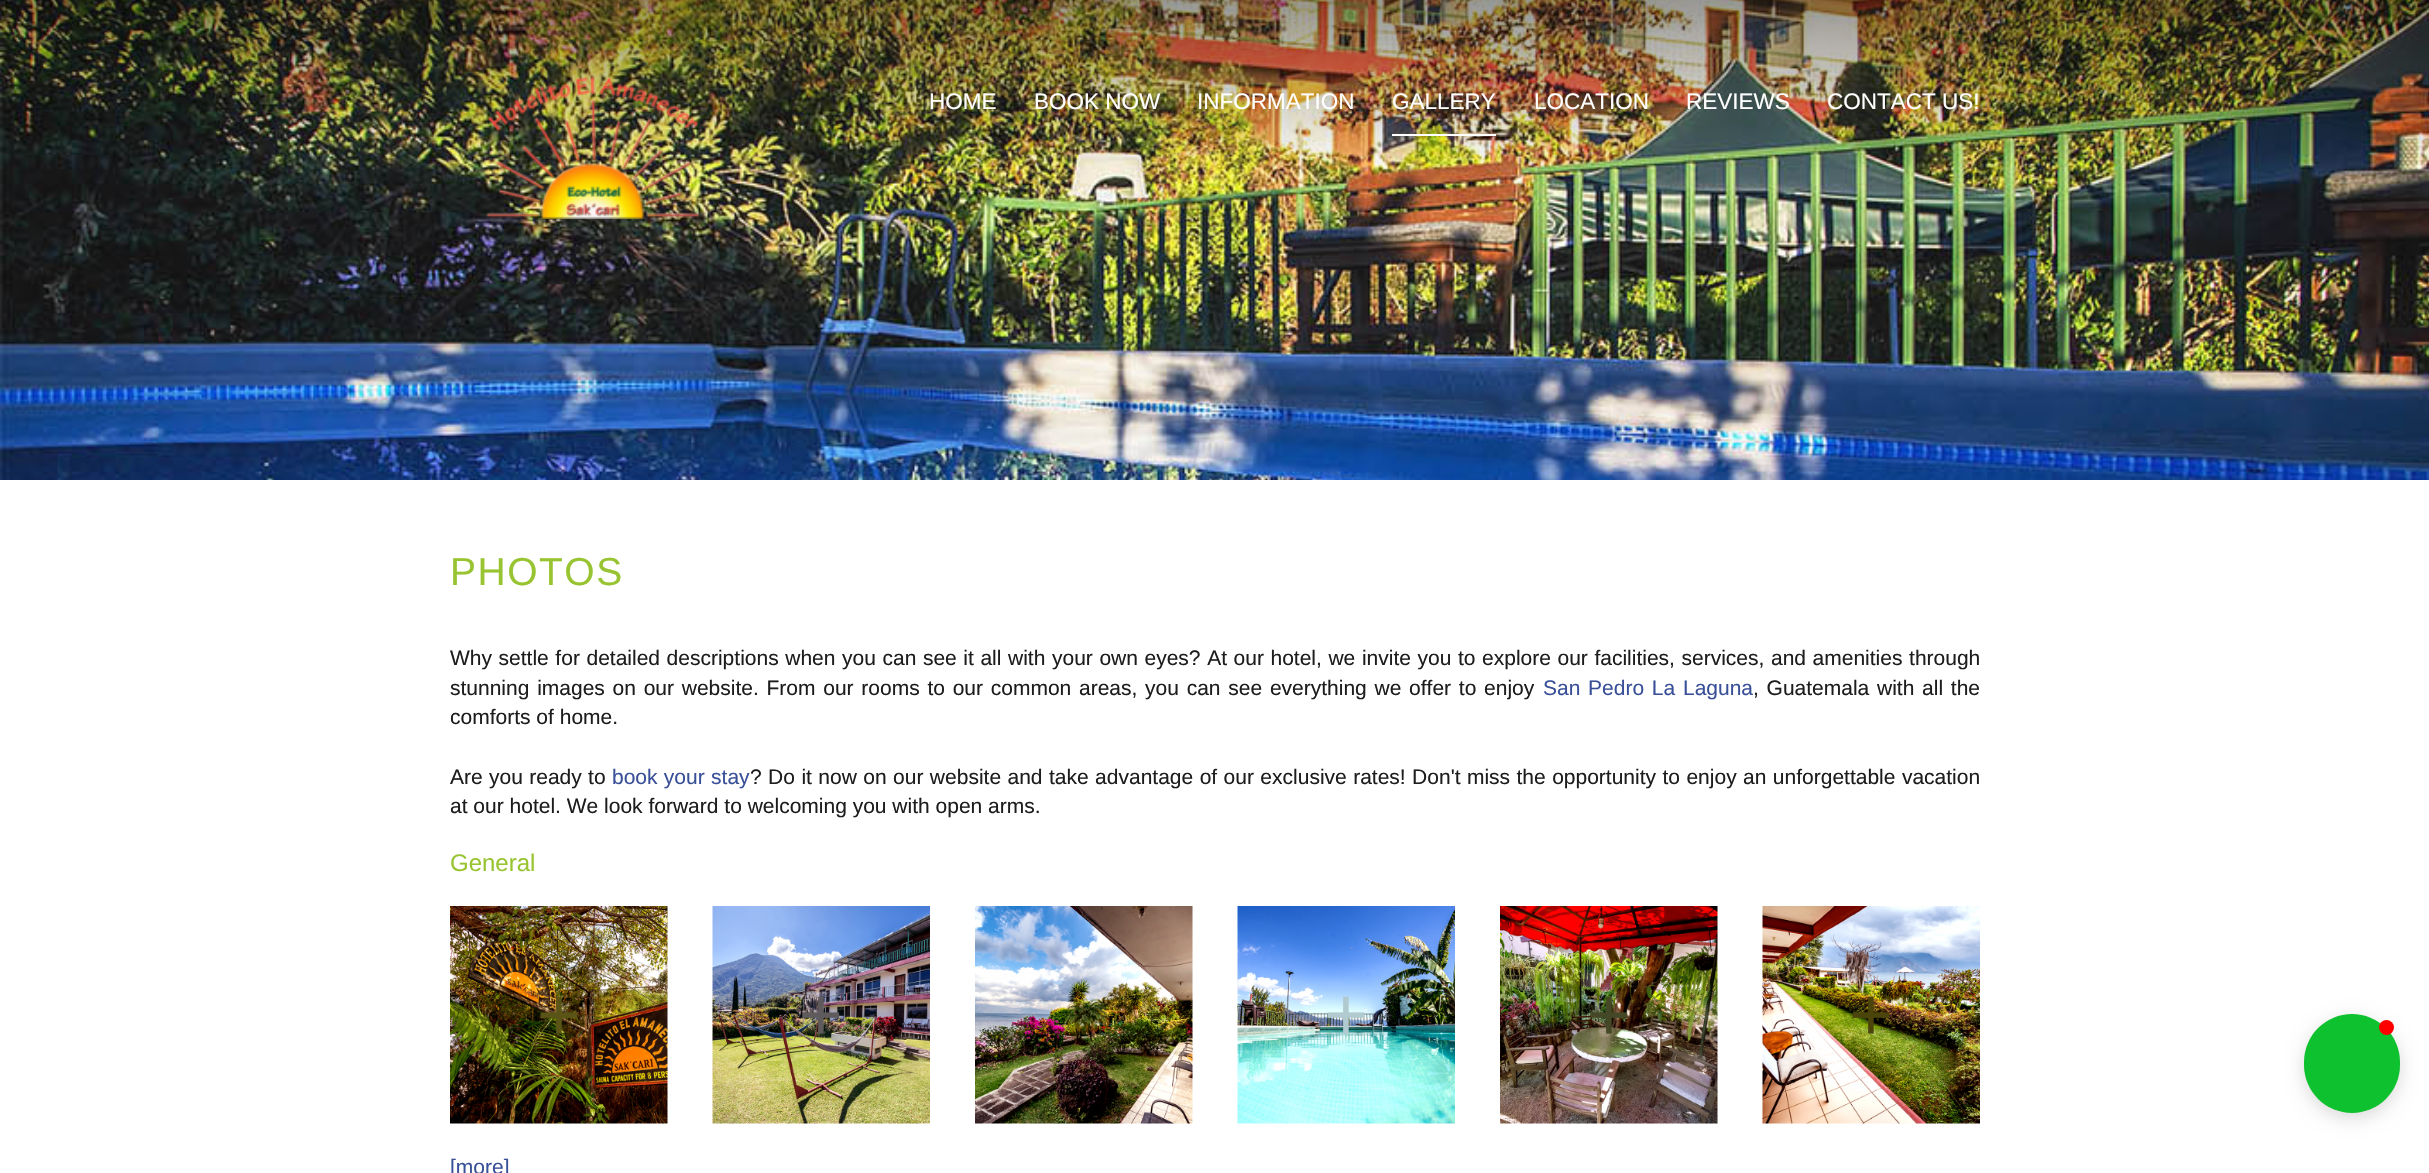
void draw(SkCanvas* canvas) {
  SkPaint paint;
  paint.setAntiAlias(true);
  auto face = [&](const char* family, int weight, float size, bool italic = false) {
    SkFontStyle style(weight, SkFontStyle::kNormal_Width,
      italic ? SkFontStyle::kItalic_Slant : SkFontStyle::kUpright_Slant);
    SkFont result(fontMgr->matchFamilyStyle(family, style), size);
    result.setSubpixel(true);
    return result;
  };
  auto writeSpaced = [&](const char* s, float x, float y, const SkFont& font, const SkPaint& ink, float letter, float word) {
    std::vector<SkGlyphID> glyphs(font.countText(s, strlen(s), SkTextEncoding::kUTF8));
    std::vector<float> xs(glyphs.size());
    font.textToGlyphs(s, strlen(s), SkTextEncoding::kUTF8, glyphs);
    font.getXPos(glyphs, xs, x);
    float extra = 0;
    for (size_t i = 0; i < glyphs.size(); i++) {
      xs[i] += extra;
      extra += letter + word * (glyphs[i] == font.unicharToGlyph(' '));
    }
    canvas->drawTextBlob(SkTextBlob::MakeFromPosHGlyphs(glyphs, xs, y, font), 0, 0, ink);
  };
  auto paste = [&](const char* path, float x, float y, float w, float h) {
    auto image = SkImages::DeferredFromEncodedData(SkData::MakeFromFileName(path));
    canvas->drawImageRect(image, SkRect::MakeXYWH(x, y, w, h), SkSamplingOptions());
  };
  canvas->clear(0xffffffff);
  paste("img/2.png", 0, 0, 2429, 480);
  paste("img/1.png", 485, 76, 215, 143);
  paint.setColor(0xffffffff);
  canvas->drawRect(SkRect::MakeXYWH(1392, 134, 104, 2), paint);
  paste("img/3.png", 450, 906, 218, 218);
  paste("img/4.png", 712, 906, 218, 218);
  paste("img/5.png", 975, 906, 218, 218);
  paste("img/6.png", 1237, 906, 218, 218);
  paste("img/7.png", 1500, 906, 218, 218);
  paste("img/8.png", 1762, 906, 218, 218);
  paint.setColor(0x26000000);
  paint.setMaskFilter(SkMaskFilter::MakeBlur(kNormal_SkBlurStyle, 9));
  canvas->drawRoundRect(SkRect::MakeXYWH(2304, 1019, 96, 99), 48, 48, paint);
  paint.setMaskFilter(nullptr);
  paint.setColor(0xff0ec12f);
  canvas->drawRoundRect(SkRect::MakeXYWH(2304, 1014, 96, 99), 48, 48, paint);
  paint.setColor(0xffff0000);
  canvas->drawCircle(2386.5f, 1027.5f, 7.5f, paint);
  auto f0 = face("Liberation Sans", 400, 22.5f);
  paint.setColor(0xffffffff);
  {
    const struct { const char* s; float x, y; } items[] = {
      {"HOME", 929, 109},
      {"BOOK NOW", 1034, 109},
      {"INFORMATION", 1197, 109},
      {"GALLERY", 1392, 109},
      {"LOCATION", 1534, 109},
      {"REVIEWS", 1686, 109},
      {"CONTACT US!", 1827, 109},
    };
    for (auto [s, x, y] : items) {
      canvas->drawString(s, x, y, f0, paint);
    }
  }
  auto f1 = face("Liberation Sans", 400, 39);
  paint.setColor(0xff99c432);
  writeSpaced("PHOTOS", 450, 585, f1, paint, 1.5f, 0);
  auto f2 = face("Liberation Sans", 400, 21);
  paint.setColor(0xff1d1d1d);
  writeSpaced("Why settle for detailed descriptions when you can see it all with your own eyes? At our hotel, we invite you to explore our facilities, services, and amenities through", 450, 665, f2, paint, 0, 0.75f);
  writeSpaced("stunning images on our website. From our rooms to our common areas, you can see everything we offer to enjoy", 450, 695, f2, paint, 0, 1.9f);
  paint.setColor(0xff395099);
  writeSpaced("San Pedro La Laguna", 1543, 695, f2, paint, 0, 1.9f);
  paint.setColor(0xff1d1d1d);
  writeSpaced(", Guatemala with all the", 1753, 695, f2, paint, 0, 1.9f);
  canvas->drawString("comforts of home.", 450, 724, f2, paint);
  writeSpaced("Are you ready to", 450, 784, f2, paint, 0, 0.5f);
  paint.setColor(0xff395099);
  writeSpaced("book your stay", 612, 784, f2, paint, 0, 0.5f);
  paint.setColor(0xff1d1d1d);
  writeSpaced("? Do it now on our website and take advantage of our exclusive rates! Don't miss the opportunity to enjoy an unforgettable vacation", 750, 784, f2, paint, 0, 0.6f);
  canvas->drawString("at our hotel. We look forward to welcoming you with open arms.", 450, 813, f2, paint);
  auto f3 = face("Liberation Sans", 400, 24);
  paint.setColor(0xff99c432);
  canvas->drawString("General", 450, 871, f3, paint);
  auto f4 = face("Liberation Sans", 400, 75);
  paint.setColor(0xff5a5416);
  canvas->drawString("+", 537, 1040, f4, paint);
  paint.setColor(0xff5f5a5c);
  canvas->drawString("+", 799, 1040, f4, paint);
  paint.setColor(0xffb0cad0);
  canvas->drawString("+", 1324, 1040, f4, paint);
  paint.setColor(0xff444827);
  canvas->drawString("+", 1587, 1040, f4, paint);
  paint.setColor(0xff4b450c);
  canvas->drawString("+", 1849, 1040, f4, paint);
  paint.setColor(0xff395099);
  canvas->drawString("[more]", 450, 1174, f2, paint);
}
